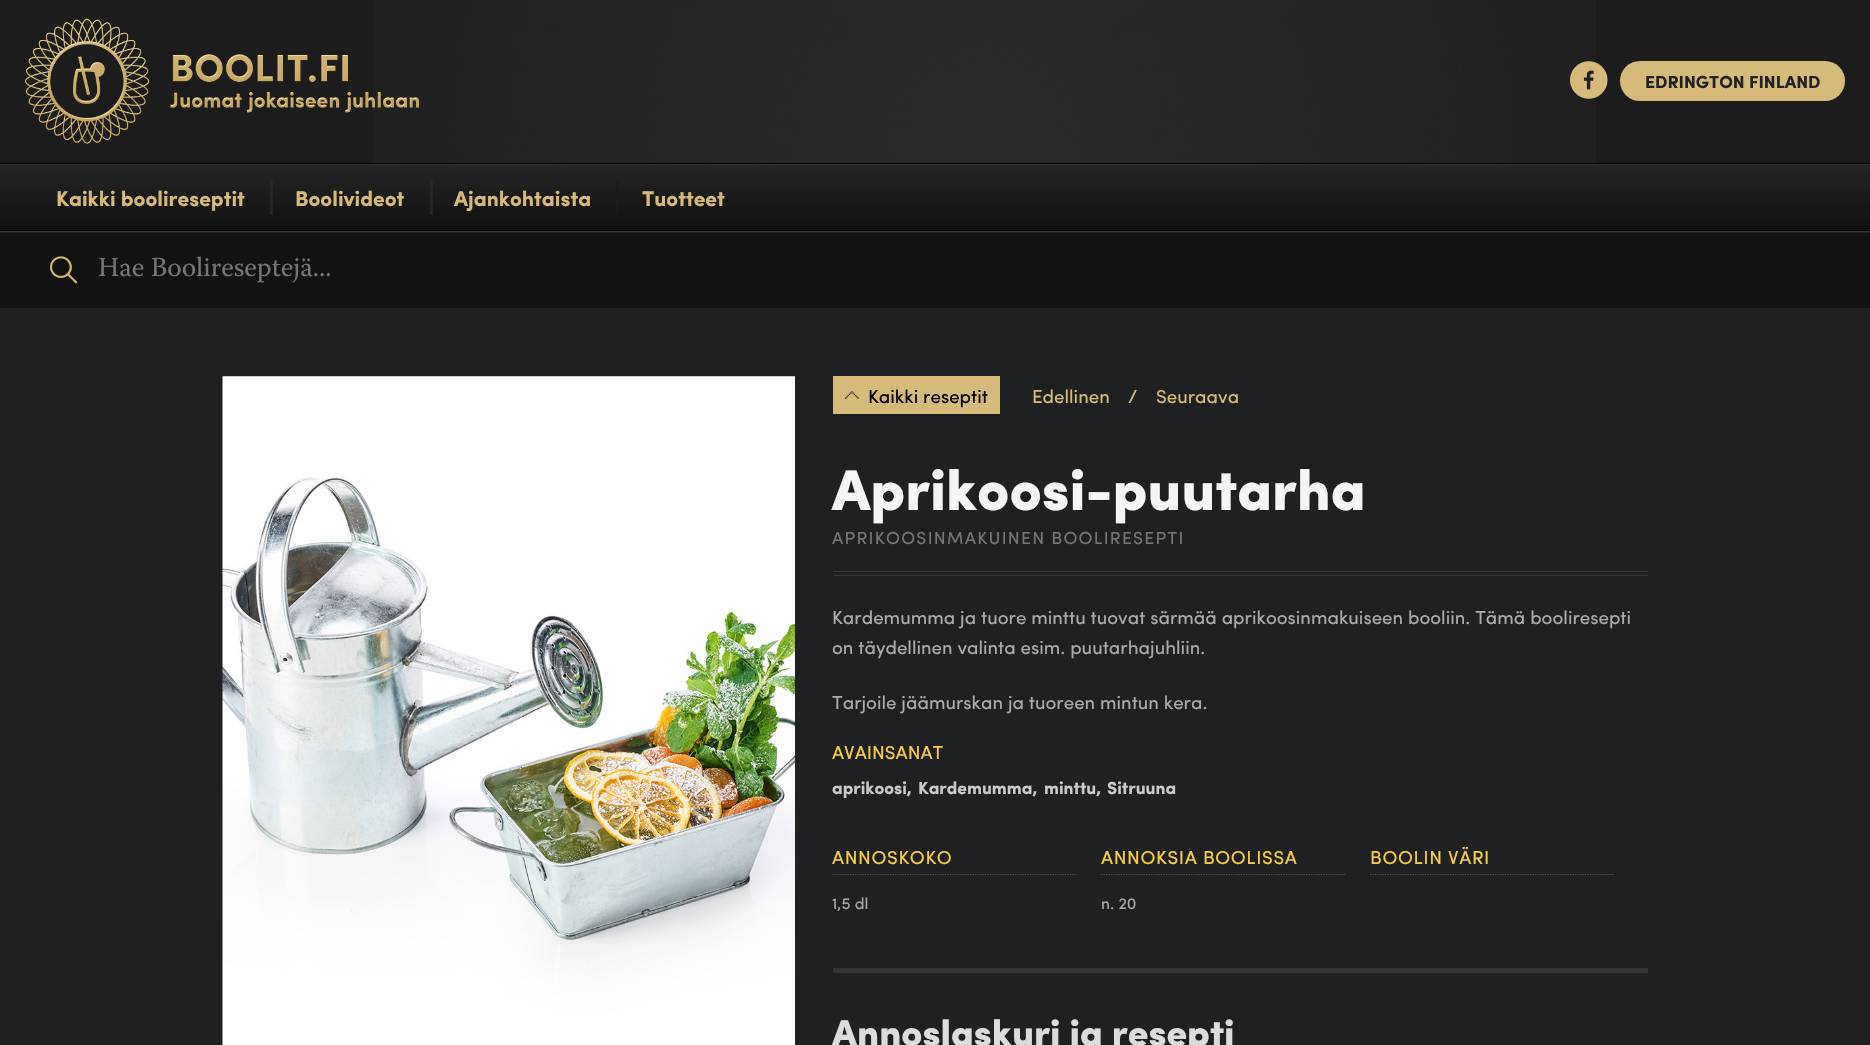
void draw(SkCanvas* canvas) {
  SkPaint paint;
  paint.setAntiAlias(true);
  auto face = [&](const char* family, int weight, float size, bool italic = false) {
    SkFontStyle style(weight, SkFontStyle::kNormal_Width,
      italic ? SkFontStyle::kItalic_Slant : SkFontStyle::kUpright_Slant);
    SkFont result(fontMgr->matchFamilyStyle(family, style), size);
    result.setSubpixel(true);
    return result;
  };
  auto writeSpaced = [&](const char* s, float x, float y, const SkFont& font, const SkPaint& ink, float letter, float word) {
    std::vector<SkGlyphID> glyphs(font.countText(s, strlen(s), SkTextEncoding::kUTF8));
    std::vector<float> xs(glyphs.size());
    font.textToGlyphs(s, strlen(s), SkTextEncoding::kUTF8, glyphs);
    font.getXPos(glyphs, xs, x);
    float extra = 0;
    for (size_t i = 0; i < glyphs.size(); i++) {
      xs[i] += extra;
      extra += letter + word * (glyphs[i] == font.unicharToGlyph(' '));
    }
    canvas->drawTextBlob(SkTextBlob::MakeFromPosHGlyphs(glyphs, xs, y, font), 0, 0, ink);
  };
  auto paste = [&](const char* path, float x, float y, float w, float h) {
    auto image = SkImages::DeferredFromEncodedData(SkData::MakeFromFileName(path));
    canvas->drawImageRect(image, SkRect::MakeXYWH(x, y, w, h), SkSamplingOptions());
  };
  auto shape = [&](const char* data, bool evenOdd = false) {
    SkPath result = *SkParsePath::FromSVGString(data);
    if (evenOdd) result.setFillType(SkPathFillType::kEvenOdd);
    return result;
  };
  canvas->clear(0xff1f2021);
  paint.setColor(0xff1c1c1c);
  canvas->drawRect(SkRect::MakeXYWH(0, 0, 1870, 163), paint);
  paste("img/1.png", 373, 0, 1223, 163);
  paint.setColor(0xff000000);
  canvas->drawRect(SkRect::MakeXYWH(0, 163, 1870, 1), paint);
  paste("img/2.png", 25, 18, 394, 126);
  paste("img/3.png", 1570, 61, 38, 38);
  paint.setColor(0xffd5ba7a);
  canvas->drawRoundRect(SkRect::MakeXYWH(1620, 61, 225, 40), 20, 20, paint);
  paint.setColor(0xff363636);
  canvas->drawRect(SkRect::MakeXYWH(0, 231, 1870, 1), paint);
  {
    const SkColor colors[] = {0xff252525, 0xff101010};
    const float stops[] = {0, 1};
    const SkPoint ends[] = {{935, 165}, {935, 230}};
    paint.setShader(SkGradientShader::MakeLinear(ends, colors, stops, 2, SkTileMode::kClamp));
    paint.setAlpha(255);
  }
  canvas->drawRect(SkRect::MakeXYWH(0, 165, 1870, 65), paint);
  paint.setShader(nullptr);
  {
    const struct { float x, y, w, h; SkColor color; } items[] = {
      {0, 164, 1870, 1, 0xff363636},
      {0, 230, 1870, 1, 0xff000000},
      {270, 180, 3, 35, 0xff252525},
      {430, 180, 3, 35, 0xff252525},
      {616, 180, 3, 35, 0xff1b1b1b},
      {0, 233, 1870, 75, 0xff121212},
    };
    for (auto [x, y, w, h, color] : items) {
      paint.setColor(color);
      canvas->drawRect(SkRect::MakeXYWH(x, y, w, h), paint);
    }
  }
  paste("img/4.png", 50, 256, 28, 28);
  paste("img/5.png", 222, 376, 573, 669);
  paint.setColor(0xffd5ba7a);
  canvas->drawRect(SkRect::MakeXYWH(833, 376, 167, 38), paint);
  paste("img/6.png", 845, 391, 14, 8);
  {
    const struct { float x, y, w, h; SkColor color; } items[] = {
      {833, 571, 815, 1, 0xff363636},
      {833, 575, 815, 1, 0xff363636},
      {833, 968, 815, 5, 0xff363636},
    };
    for (auto [x, y, w, h, color] : items) {
      paint.setColor(color);
      canvas->drawRect(SkRect::MakeXYWH(x, y, w, h), paint);
    }
  }
  paint.setStroke(true);
  paint.setStrokeWidth(1.2f);
  paint.setColor(0xff535353);
  paint.setPathEffect(SkDashPathEffect::Make({{1.25f, 1.25f}}, 0));
  canvas->drawPath(shape("M832.5 874.5H1076"), paint);
  paint.setPathEffect(nullptr);
  paint.setPathEffect(SkDashPathEffect::Make({{1.25f, 1.25f}}, 0));
  canvas->drawPath(shape("M1101 874.5H1346"), paint);
  paint.setPathEffect(nullptr);
  paint.setPathEffect(SkDashPathEffect::Make({{1.25f, 1.25f}}, 0));
  canvas->drawPath(shape("M1370 874.5H1615"), paint);
  paint.setPathEffect(nullptr);
  auto f0 = face("Sofia", 700, 17.5f);
  paint.setStroke(false);
  paint.setColor(0xff222222);
  canvas->drawString("EDRINGTON FINLAND", 1645, 88, f0, paint);
  auto f1 = face("Sofia", 700, 21.25f);
  paint.setColor(0xffd5ba7a);
  {
    const struct { const char* s; float x, y; } items[] = {
      {"Kaikki boolireseptit", 56, 206},
      {"Boolivideot", 295, 206},
      {"Ajankohtaista", 454, 206},
      {"Tuotteet", 642, 206},
    };
    for (auto [s, x, y] : items) {
      canvas->drawString(s, x, y, f1, paint);
    }
  }
  auto f2 = face("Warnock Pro", 400, 27.5f);
  paint.setColor(0xff757575);
  canvas->drawString("Hae Boolireseptejä...", 98, 276, f2, paint);
  auto f3 = face("Sofia", 400, 18.75f);
  paint.setColor(0xff000000);
  canvas->drawString("Kaikki reseptit", 868, 403, f3, paint);
  paint.setColor(0xffd5ba7a);
  {
    const struct { const char* s; float x, y; } items[] = {
      {"Edellinen", 1032, 403},
      {"/", 1128, 403},
      {"Seuraava", 1156, 403},
    };
    for (auto [s, x, y] : items) {
      canvas->drawString(s, x, y, f3, paint);
    }
  }
  auto f4 = face("Sofia", 900, 57.5f);
  paint.setColor(0xfff5f5f5);
  canvas->drawString("Aprikoosi-puutarha", 832, 510, f4, paint);
  auto f5 = face("Sofia", 400, 17.5f);
  paint.setColor(0xff757575);
  writeSpaced("APRIKOOSINMAKUINEN BOOLIRESEPTI", 832, 544, f5, paint, 1.25f, 0);
  paint.setColor(0xffabaaaa);
  {
    const struct { const char* s; float x, y; } items[] = {
      {"Kardemumma ja tuore minttu tuovat särmää aprikoosinmakuiseen booliin. Tämä booliresepti", 832, 624},
      {"on täydellinen valinta esim. puutarhajuhliin.", 832, 654},
      {"Tarjoile jäämurskan ja tuoreen mintun kera.", 832, 709},
    };
    for (auto [s, x, y] : items) {
      canvas->drawString(s, x, y, f3, paint);
    }
  }
  paint.setColor(0xfff4cd47);
  canvas->drawString("AVAINSANAT", 832, 759, f3, paint);
  paint.setColor(0xffcbcaca);
  {
    const struct { const char* s; float x, y; } items[] = {
      {"aprikoosi,", 832, 794},
      {"Kardemumma,", 918, 794},
      {"minttu,", 1044, 794},
      {"Sitruuna", 1107, 794},
    };
    for (auto [s, x, y] : items) {
      canvas->drawString(s, x, y, f0, paint);
    }
  }
  paint.setColor(0xfff4cd47);
  writeSpaced("ANNOSKOKO", 832, 864, f3, paint, 0.6f, 0);
  auto f6 = face("Sofia", 400, 16);
  paint.setColor(0xffabaaaa);
  canvas->drawString("1,5 dl", 832, 909, f6, paint);
  paint.setColor(0xfff4cd47);
  writeSpaced("ANNOKSIA BOOLISSA", 1101, 864, f3, paint, 0.6f, 0);
  paint.setColor(0xffabaaaa);
  canvas->drawString("n. 20", 1101, 909, f6, paint);
  paint.setColor(0xfff4cd47);
  writeSpaced("BOOLIN VÄRI", 1370, 864, f3, paint, 0.6f, 0);
  auto f7 = face("Sofia", 900, 37.5f);
  paint.setColor(0xffdcdcdc);
  canvas->drawString("Annoslaskuri ja resepti", 832, 1046, f7, paint);
}
